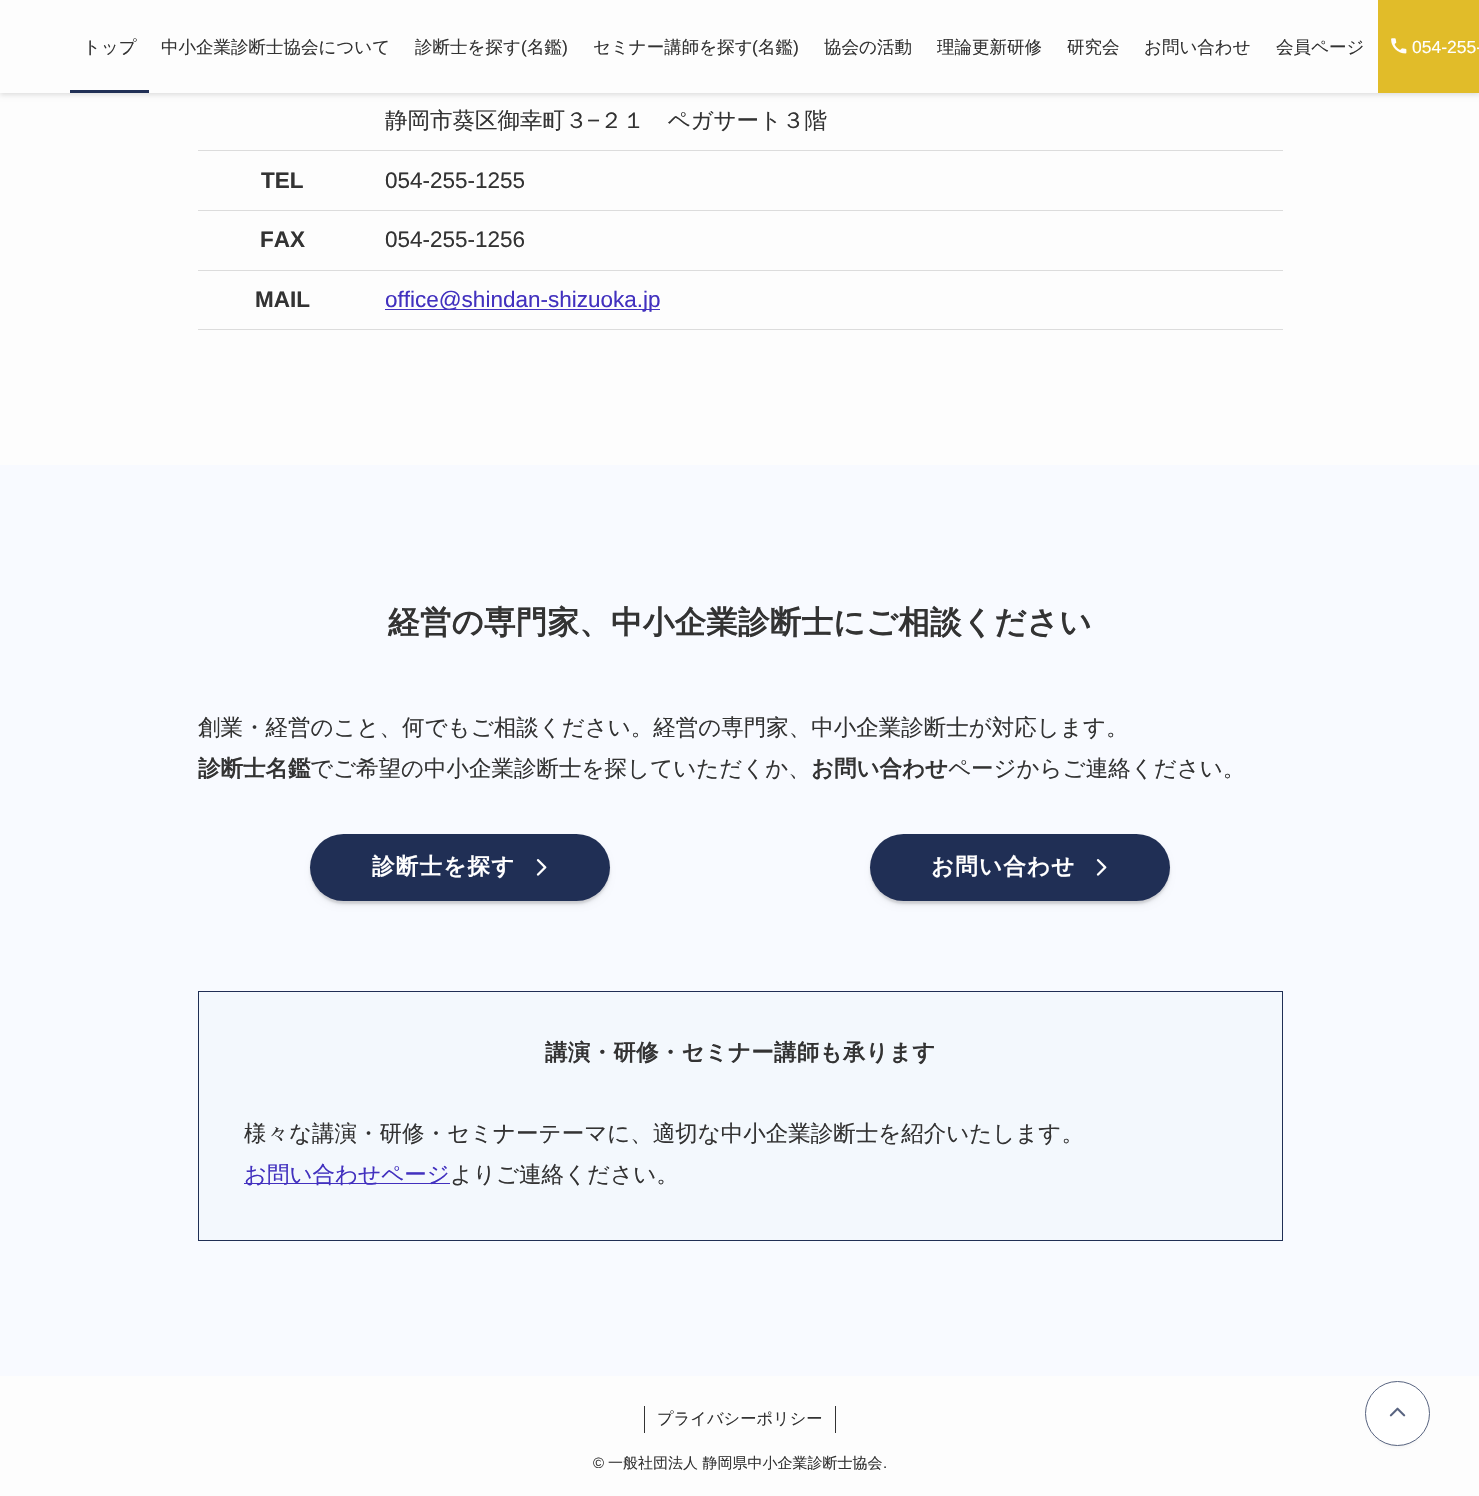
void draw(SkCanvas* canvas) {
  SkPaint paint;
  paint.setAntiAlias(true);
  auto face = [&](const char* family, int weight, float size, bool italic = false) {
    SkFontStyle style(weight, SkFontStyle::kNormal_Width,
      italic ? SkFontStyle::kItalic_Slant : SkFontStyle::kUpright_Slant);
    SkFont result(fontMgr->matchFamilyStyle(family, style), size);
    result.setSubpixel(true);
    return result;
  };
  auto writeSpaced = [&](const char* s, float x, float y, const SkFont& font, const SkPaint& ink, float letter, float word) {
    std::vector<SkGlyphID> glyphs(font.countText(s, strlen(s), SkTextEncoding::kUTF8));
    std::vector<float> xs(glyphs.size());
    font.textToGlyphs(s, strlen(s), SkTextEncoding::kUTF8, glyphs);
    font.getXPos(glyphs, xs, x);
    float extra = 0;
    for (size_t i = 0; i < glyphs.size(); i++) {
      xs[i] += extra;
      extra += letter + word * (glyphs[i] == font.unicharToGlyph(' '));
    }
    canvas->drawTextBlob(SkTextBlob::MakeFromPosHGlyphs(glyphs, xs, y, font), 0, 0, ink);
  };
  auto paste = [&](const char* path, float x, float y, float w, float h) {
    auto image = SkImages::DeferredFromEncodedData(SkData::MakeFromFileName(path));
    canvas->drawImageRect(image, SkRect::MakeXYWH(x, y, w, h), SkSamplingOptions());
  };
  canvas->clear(0xfffdfdfd);
  paint.setColor(0x1f000000);
  paint.setMaskFilter(SkMaskFilter::MakeBlur(kNormal_SkBlurStyle, 2.5f));
  canvas->drawRect(SkRect::MakeXYWH(0, 3, 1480, 92), paint);
  paint.setMaskFilter(nullptr);
  {
    const struct { float x, y, w, h; SkColor color; } items[] = {
      {0, 0, 1378, 93, 0xfffdfdfd},
      {70, 90, 79, 3, 0xff202f55},
      {1378, 0, 101, 93, 0xffe1bc29},
    };
    for (auto [x, y, w, h, color] : items) {
      paint.setColor(color);
      canvas->drawRect(SkRect::MakeXYWH(x, y, w, h), paint);
    }
  }
  paste("img/1.png", 1391, 38, 16, 16);
  {
    const struct { float x, y, w, h; SkColor color; } items[] = {
      {198, 150, 1085, 1, 0xffdcdcdc},
      {198, 210, 1085, 1, 0xffdcdcdc},
      {198, 270, 1085, 1, 0xffdcdcdc},
      {198, 329, 1085, 1, 0xffdcdcdc},
      {385, 309, 275, 1, 0xff4231bf},
      {0, 465, 1479, 911, 0xfff8faff},
    };
    for (auto [x, y, w, h, color] : items) {
      paint.setColor(color);
      canvas->drawRect(SkRect::MakeXYWH(x, y, w, h), paint);
    }
  }
  paint.setColor(0x33000000);
  paint.setMaskFilter(SkMaskFilter::MakeBlur(kNormal_SkBlurStyle, 5));
  canvas->drawRoundRect(SkRect::MakeXYWH(315, 844, 290, 57), 28.5f, 28.5f, paint);
  paint.setMaskFilter(nullptr);
  paint.setColor(0x1a000000);
  paint.setMaskFilter(SkMaskFilter::MakeBlur(kNormal_SkBlurStyle, 1));
  canvas->drawRoundRect(SkRect::MakeXYWH(310, 836, 300, 68), 34, 34, paint);
  paint.setMaskFilter(nullptr);
  paint.setColor(0xff202f55);
  canvas->drawRoundRect(SkRect::MakeXYWH(310, 834, 300, 67), 33.5f, 33.5f, paint);
  paste("img/2.png", 536, 859, 11, 17);
  paint.setColor(0x33000000);
  paint.setMaskFilter(SkMaskFilter::MakeBlur(kNormal_SkBlurStyle, 5));
  canvas->drawRoundRect(SkRect::MakeXYWH(875, 844, 290, 57), 28.5f, 28.5f, paint);
  paint.setMaskFilter(nullptr);
  paint.setColor(0x1a000000);
  paint.setMaskFilter(SkMaskFilter::MakeBlur(kNormal_SkBlurStyle, 1));
  canvas->drawRoundRect(SkRect::MakeXYWH(870, 836, 300, 68), 34, 34, paint);
  paint.setMaskFilter(nullptr);
  paint.setColor(0xff202f55);
  canvas->drawRoundRect(SkRect::MakeXYWH(870, 834, 300, 67), 33.5f, 33.5f, paint);
  paste("img/2.png", 1096, 859, 11, 17);
  paint.setColor(0xfff3f8fd);
  canvas->drawRect(SkRect::MakeXYWH(198.5f, 991.5f, 1084, 249), paint);
  paint.setStroke(true);
  paint.setStrokeWidth(1);
  paint.setColor(0xff202f55);
  canvas->drawRect(SkRect::MakeXYWH(198.5f, 991.5f, 1084, 249), paint);
  paint.setStroke(false);
  {
    const struct { float x, y, w, h; SkColor color; } items[] = {
      {244, 1183, 206, 1, 0xff4231bf},
      {835, 1406, 1, 27, 0xff333333},
      {644, 1406, 1, 27, 0xff333333},
    };
    for (auto [x, y, w, h, color] : items) {
      paint.setColor(color);
      canvas->drawRect(SkRect::MakeXYWH(x, y, w, h), paint);
    }
  }
  paint.setColor(0x1a3f3f3f);
  paint.setMaskFilter(SkMaskFilter::MakeBlur(kNormal_SkBlurStyle, 2.5f));
  canvas->drawRoundRect(SkRect::MakeXYWH(1370, 1391, 55, 55), 27.5f, 27.5f, paint);
  paint.setMaskFilter(nullptr);
  paint.setColor(0xffffffff);
  canvas->drawCircle(1397.5f, 1413.5f, 32, paint);
  paint.setStroke(true);
  paint.setColor(0xff57637f);
  canvas->drawCircle(1397.5f, 1413.5f, 32, paint);
  paste("img/3.png", 1389, 1407, 17, 10);
  auto f0 = face("WenQuanYi Zen Hei", 500, 17.5f);
  paint.setStroke(false);
  paint.setColor(0xff333333);
  {
    const struct { const char* s; float x, y; } items[] = {
      {"トップ", 83, 53},
      {"中小企業診断士協会について", 161, 53},
      {"診断士を探す", 415, 53},
    };
    for (auto [s, x, y] : items) {
      canvas->drawString(s, x, y, f0, paint);
    }
  }
  auto f1 = face("Liberation Sans", 400, 17.5f);
  canvas->drawString("(", 521, 53, f1, paint);
  canvas->drawString("名鑑", 527, 53, f0, paint);
  canvas->drawString(")", 562, 53, f1, paint);
  canvas->drawString("セミナー講師を探す", 593, 53, f0, paint);
  canvas->drawString("(", 752, 53, f1, paint);
  canvas->drawString("名鑑", 758, 53, f0, paint);
  canvas->drawString(")", 793, 53, f1, paint);
  {
    const struct { const char* s; float x, y; } items[] = {
      {"協会の活動", 824, 53},
      {"理論更新研修", 937, 53},
      {"研究会", 1067, 53},
      {"お問い合わせ", 1144, 53},
      {"会員ページ", 1276, 53},
    };
    for (auto [s, x, y] : items) {
      canvas->drawString(s, x, y, f0, paint);
    }
  }
  paint.setColor(0xffffffff);
  canvas->drawString("054-255-", 1412, 53, f1, paint);
  auto f2 = face("WenQuanYi Zen Hei", 500, 22.5f);
  paint.setColor(0xff333333);
  canvas->drawString("静岡市葵区御幸町３", 385, 128, f2, paint);
  auto f3 = face("Liberation Sans", 400, 22.5f);
  canvas->drawString("−", 587, 128, f3, paint);
  canvas->drawString("２１　ペガサート３階", 600, 128, f2, paint);
  auto f4 = face("Liberation Sans", 700, 22.5f);
  canvas->drawString("TEL", 261, 188, f4, paint);
  canvas->drawString("054-255-1255", 385, 188, f3, paint);
  canvas->drawString("FAX", 260, 247, f4, paint);
  canvas->drawString("054-255-1256", 385, 247, f3, paint);
  canvas->drawString("MAIL", 255, 307, f4, paint);
  paint.setColor(0xff4231bf);
  canvas->drawString("office@shindan-shizuoka.jp", 385, 307, f3, paint);
  auto f5 = face("WenQuanYi Zen Hei", 700, 31.5f);
  paint.setColor(0xff333333);
  writeSpaced("経営の専門家、中小企業診断士にご相談ください", 388, 633, f5, paint, 0.25f, 0);
  canvas->drawString("創業・経営のこと、何でもご相談ください。経営の専門家、中小企業診断士が対応します。", 198, 735, f2, paint);
  auto f6 = face("WenQuanYi Zen Hei", 700, 22.5f);
  canvas->drawString("診断士名鑑", 198, 776, f6, paint);
  canvas->drawString("でご希望の中小企業診断士を探していただくか、", 310, 776, f2, paint);
  canvas->drawString("お問い合わせ", 811, 776, f6, paint);
  canvas->drawString("ページからご連絡ください。", 948, 776, f2, paint);
  paint.setColor(0xffffffff);
  writeSpaced("診断士を探す", 372, 874, f6, paint, 1.25f, 0);
  writeSpaced("お問い合わせ", 931, 874, f6, paint, 1.25f, 0);
  paint.setColor(0xff333333);
  writeSpaced("講演・研修・セミナー講師も承ります", 545, 1060, f6, paint, 0.25f, 0);
  canvas->drawString("様々な講演・研修・セミナーテーマに、適切な中小企業診断士を紹介いたします。", 244, 1141, f2, paint);
  paint.setColor(0xff4231bf);
  canvas->drawString("お問い合わせページ", 244, 1182, f2, paint);
  paint.setColor(0xff333333);
  canvas->drawString("よりご連絡ください。", 450, 1182, f2, paint);
  auto f7 = face("WenQuanYi Zen Hei", 500, 16.25f);
  canvas->drawString("プライバシーポリシー", 657, 1424, f7, paint);
  auto f8 = face("Liberation Sans", 400, 15);
  canvas->drawString("©", 593, 1468, f8, paint);
  auto f9 = face("WenQuanYi Zen Hei", 500, 15);
  canvas->drawString("一般社団法人 静岡県中小企業診断士協会", 608, 1468, f9, paint);
  canvas->drawString(".", 883, 1468, f8, paint);
}
